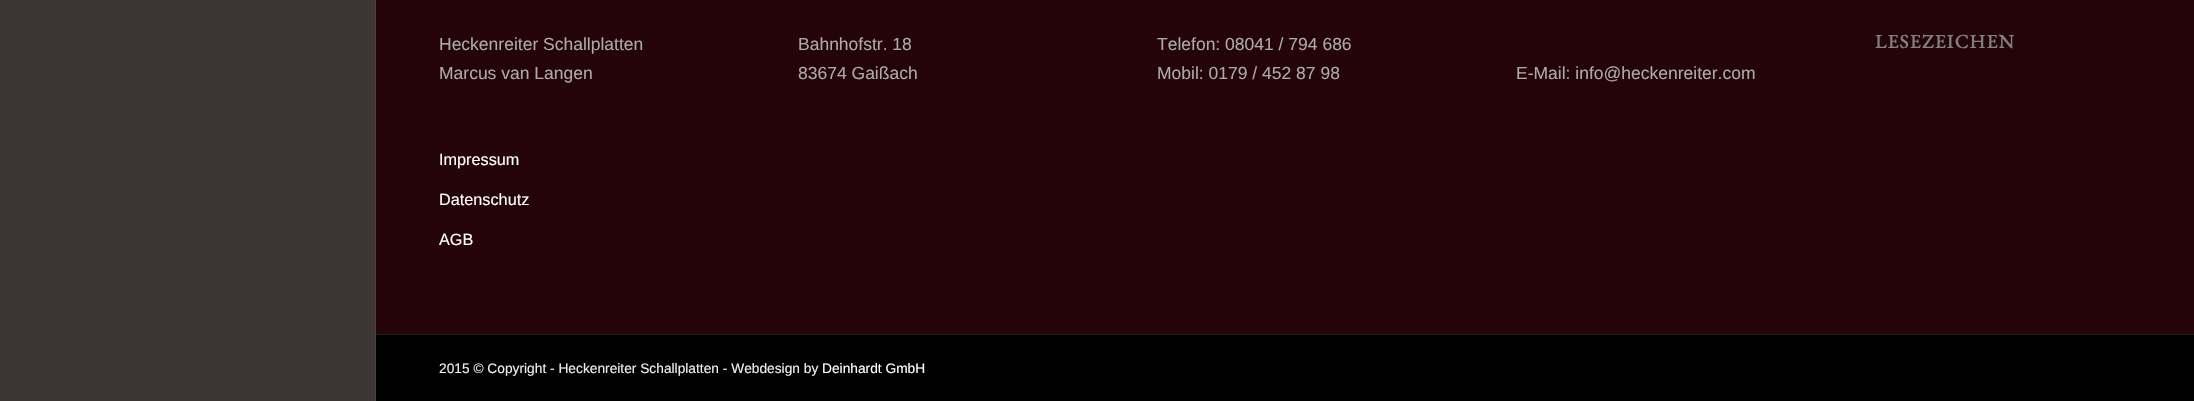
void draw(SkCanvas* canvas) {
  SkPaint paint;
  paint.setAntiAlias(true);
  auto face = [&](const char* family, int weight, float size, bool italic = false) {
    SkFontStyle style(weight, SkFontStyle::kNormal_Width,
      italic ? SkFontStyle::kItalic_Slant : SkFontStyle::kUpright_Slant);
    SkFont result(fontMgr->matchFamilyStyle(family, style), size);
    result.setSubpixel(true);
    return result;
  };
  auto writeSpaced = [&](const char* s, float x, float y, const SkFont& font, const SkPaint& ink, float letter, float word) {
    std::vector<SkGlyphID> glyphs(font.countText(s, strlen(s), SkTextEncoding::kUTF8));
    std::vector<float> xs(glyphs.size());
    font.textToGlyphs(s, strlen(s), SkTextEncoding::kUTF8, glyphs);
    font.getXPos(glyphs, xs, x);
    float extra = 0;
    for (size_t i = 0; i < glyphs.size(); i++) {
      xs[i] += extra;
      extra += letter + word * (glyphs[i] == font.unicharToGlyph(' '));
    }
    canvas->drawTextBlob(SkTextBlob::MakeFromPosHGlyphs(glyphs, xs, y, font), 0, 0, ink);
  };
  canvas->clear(0xff3b3536);
  {
    const struct { float x, y, w, h; SkColor color; } items[] = {
      {375, 0, 1, 401, 0xff4d4432},
      {376, 0, 1818, 334, 0xff240408},
      {376, 335, 1818, 66, 0xff000000},
      {376, 334, 1818, 1, 0xff222222},
    };
    for (auto [x, y, w, h, color] : items) {
      paint.setColor(color);
      canvas->drawRect(SkRect::MakeXYWH(x, y, w, h), paint);
    }
  }
  auto f0 = face("Liberation Sans", 400, 17.5f);
  paint.setColor(0xffaaaaaa);
  canvas->drawString("Heckenreiter Schallplatten", 439, 50, f0, paint);
  canvas->drawString("Marcus van Langen", 439, 79, f0, paint);
  auto f1 = face("Liberation Sans", 400, 16.25f);
  paint.setColor(0xffffffff);
  {
    const struct { const char* s; float x, y; } items[] = {
      {"Impressum", 439, 165},
      {"Datenschutz", 439, 205},
      {"AGB", 439, 245},
    };
    for (auto [s, x, y] : items) {
      canvas->drawString(s, x, y, f1, paint);
    }
  }
  paint.setColor(0xffaaaaaa);
  {
    const struct { const char* s; float x, y; } items[] = {
      {"Bahnhofstr. 18", 798, 50},
      {"83674 Gaißach", 798, 79},
      {"Telefon: 08041 / 794 686", 1157, 50},
      {"Mobil: 0179 / 452 87 98", 1157, 79},
      {"E-Mail: info@heckenreiter.com", 1516, 79},
    };
    for (auto [s, x, y] : items) {
      canvas->drawString(s, x, y, f0, paint);
    }
  }
  auto f2 = face("EB Garamond", 700, 19.25f);
  paint.setColor(0xff808080);
  writeSpaced("LESEZEICHEN", 1875, 48, f2, paint, 1.25f, 0);
  auto f3 = face("Liberation Sans", 400, 13.75f);
  paint.setColor(0xffeeeeee);
  canvas->drawString("2015 © Copyright - Heckenreiter Schallplatten - Webdesign by", 439, 373, f3, paint);
  paint.setColor(0xffffffff);
  canvas->drawString("Deinhardt GmbH", 822, 373, f3, paint);
}
